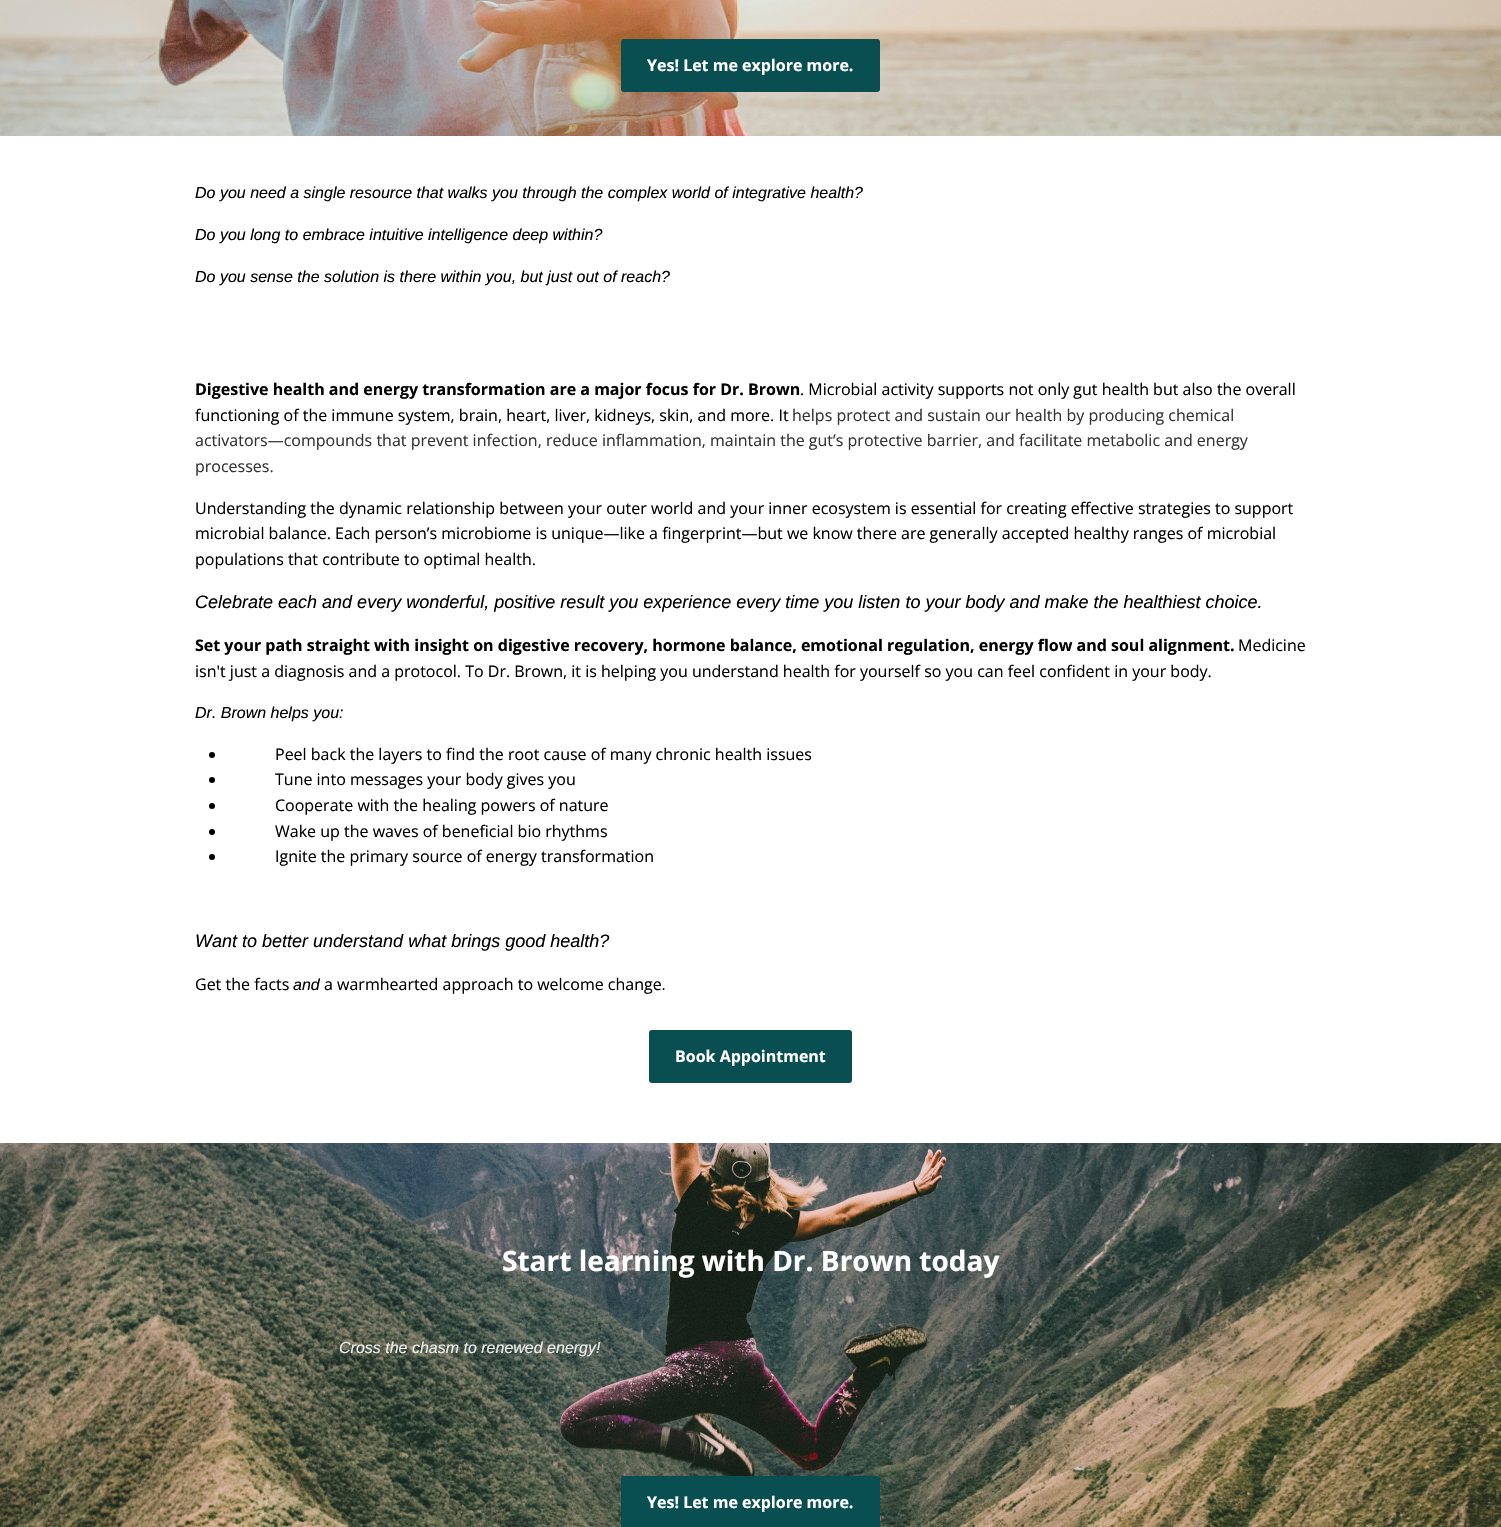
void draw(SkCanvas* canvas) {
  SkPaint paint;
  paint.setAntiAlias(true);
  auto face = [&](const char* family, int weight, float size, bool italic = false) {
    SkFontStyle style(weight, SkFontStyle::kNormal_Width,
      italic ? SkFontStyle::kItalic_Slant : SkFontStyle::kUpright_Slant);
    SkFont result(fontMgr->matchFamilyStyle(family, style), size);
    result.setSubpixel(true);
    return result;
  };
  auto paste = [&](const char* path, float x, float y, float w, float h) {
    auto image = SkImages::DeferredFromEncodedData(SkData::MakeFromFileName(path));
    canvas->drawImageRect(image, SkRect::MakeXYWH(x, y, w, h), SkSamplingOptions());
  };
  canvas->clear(0xffffffff);
  paste("img/1.png", 0, 0, 1501, 136);
  paint.setColor(0xff094e51);
  canvas->drawRoundRect(SkRect::MakeXYWH(622, 40, 257, 51), 2, 2, paint);
  paint.setStroke(true);
  paint.setStrokeWidth(2);
  canvas->drawRoundRect(SkRect::MakeXYWH(622, 40, 257, 51), 2, 2, paint);
  paint.setStroke(false);
  paint.setColor(0xff000000);
  canvas->drawCircle(212, 755, 3, paint);
  canvas->drawCircle(212, 780, 3, paint);
  canvas->drawCircle(212, 806, 3, paint);
  canvas->drawCircle(212, 832, 3, paint);
  canvas->drawCircle(212, 857, 3, paint);
  paint.setColor(0xff094e51);
  canvas->drawRoundRect(SkRect::MakeXYWH(650, 1031, 201, 51), 2, 2, paint);
  paint.setStroke(true);
  canvas->drawRoundRect(SkRect::MakeXYWH(650, 1031, 201, 51), 2, 2, paint);
  paste("img/2.png", 0, 1143, 1501, 384);
  paint.setStroke(false);
  canvas->drawRoundRect(SkRect::MakeXYWH(622, 1477, 257, 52), 2, 2, paint);
  paint.setStroke(true);
  canvas->drawRoundRect(SkRect::MakeXYWH(622, 1477, 257, 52), 2, 2, paint);
  auto f0 = face("Open Sans", 700, 16);
  paint.setStroke(false);
  paint.setColor(0xffffffff);
  canvas->drawString("Yes! Let me explore more.", 647, 71, f0, paint);
  auto f1 = face("Liberation Sans", 400, 16, true);
  paint.setColor(0xff000000);
  {
    const struct { const char* s; float x, y; } items[] = {
      {"Do you need a single resource that walks you through the complex world of integrative health?", 195, 198},
      {"Do you long to embrace intuitive intelligence deep within?", 195, 240},
      {"Do you sense the solution is there within you, but just out of reach?", 195, 282},
    };
    for (auto [s, x, y] : items) {
      canvas->drawString(s, x, y, f1, paint);
    }
  }
  canvas->drawString("Digestive health and energy transformation are a major focus for Dr. Brown", 195, 395, f0, paint);
  auto f2 = face("Open Sans", 400, 16);
  canvas->drawString(". Microbial activity supports not only gut health but also the overall", 800, 395, f2, paint);
  canvas->drawString("functioning of the immune system, brain, heart, liver, kidneys, skin, and more. It", 195, 421, f2, paint);
  paint.setColor(0xff333333);
  {
    const struct { const char* s; float x, y; } items[] = {
      {"helps protect and sustain our health by producing chemical", 792, 421},
      {"activators—compounds that prevent infection, reduce inflammation, maintain the gut’s protective barrier, and facilitate metabolic and energy", 195, 446},
      {"processes.", 195, 472},
    };
    for (auto [s, x, y] : items) {
      canvas->drawString(s, x, y, f2, paint);
    }
  }
  paint.setColor(0xff000000);
  {
    const struct { const char* s; float x, y; } items[] = {
      {"Understanding the dynamic relationship between your outer world and your inner ecosystem is essential for creating effective strategies to support", 195, 514},
      {"microbial balance. Each person’s microbiome is unique—like a fingerprint—but we know there are generally accepted healthy ranges of microbial", 195, 539},
      {"populations that contribute to optimal health.", 195, 565},
    };
    for (auto [s, x, y] : items) {
      canvas->drawString(s, x, y, f2, paint);
    }
  }
  auto f3 = face("Liberation Sans", 400, 18, true);
  canvas->drawString("Celebrate each and every wonderful, positive result you experience every time you listen to your body and make the healthiest choice.", 195, 608, f3, paint);
  canvas->drawString("Set your path straight with insight on digestive recovery, hormone balance, emotional regulation, energy flow and soul alignment.", 195, 651, f0, paint);
  canvas->drawString("Medicine", 1238, 651, f2, paint);
  canvas->drawString("isn't just a diagnosis and a protocol. To Dr. Brown, it is helping you understand health for yourself so you can feel confident in your body.", 195, 677, f2, paint);
  canvas->drawString("Dr. Brown helps you:", 195, 718, f1, paint);
  {
    const struct { const char* s; float x, y; } items[] = {
      {"Peel back the layers to find the root cause of many chronic health issues", 275, 760},
      {"Tune into messages your body gives you", 275, 785},
      {"Cooperate with the healing powers of nature", 275, 811},
      {"Wake up the waves of beneficial bio rhythms", 275, 837},
      {"Ignite the primary source of energy transformation", 275, 862},
    };
    for (auto [s, x, y] : items) {
      canvas->drawString(s, x, y, f2, paint);
    }
  }
  canvas->drawString("Want to better understand what brings good health?", 195, 947, f3, paint);
  canvas->drawString("Get the facts", 195, 990, f2, paint);
  canvas->drawString("and", 293, 990, f1, paint);
  canvas->drawString("a warmhearted approach to welcome change", 324, 990, f2, paint);
  canvas->drawString(".", 662, 990, f1, paint);
  paint.setColor(0xffffffff);
  canvas->drawString("Book Appointment", 675, 1062, f0, paint);
  auto f4 = face("Open Sans", 700, 28);
  canvas->drawString("Start learning with Dr. Brown today", 502, 1271, f4, paint);
  paint.setColor(0xffeeeeee);
  canvas->drawString("Cross the chasm to renewed energy!", 339, 1353, f1, paint);
  paint.setColor(0xffffffff);
  canvas->drawString("Yes! Let me explore more.", 647, 1508, f0, paint);
}
